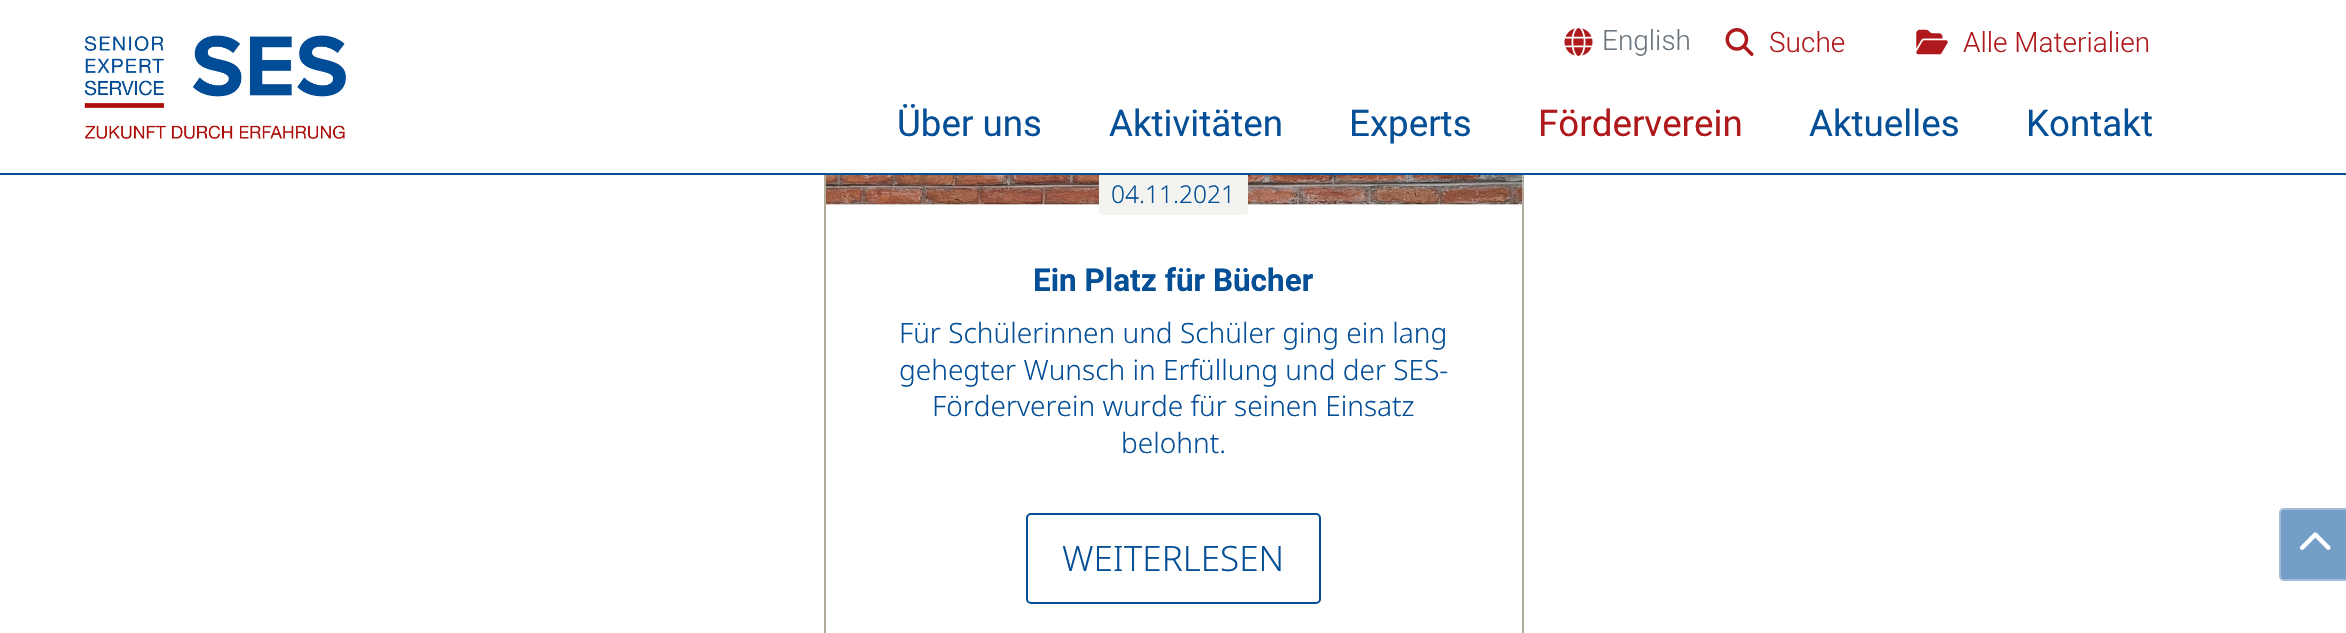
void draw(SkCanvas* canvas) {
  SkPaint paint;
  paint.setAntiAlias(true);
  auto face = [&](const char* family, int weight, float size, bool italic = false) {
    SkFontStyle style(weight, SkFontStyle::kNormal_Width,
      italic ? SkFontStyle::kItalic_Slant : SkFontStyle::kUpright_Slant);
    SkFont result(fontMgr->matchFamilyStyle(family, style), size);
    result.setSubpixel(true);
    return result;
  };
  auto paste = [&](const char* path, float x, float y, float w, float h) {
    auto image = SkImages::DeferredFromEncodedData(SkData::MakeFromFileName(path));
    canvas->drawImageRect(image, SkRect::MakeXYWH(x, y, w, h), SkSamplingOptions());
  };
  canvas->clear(0xffffffff);
  paint.setStroke(true);
  paint.setStrokeWidth(2);
  paint.setColor(0xffb1ac99);
  canvas->drawRect(SkRect::MakeXYWH(825, -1, 698, 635), paint);
  paint.setStroke(false);
  paint.setColor(0xfff3f3f0);
  canvas->drawRect(SkRect::MakeXYWH(826, 175, 697, 30), paint);
  paste("img/5.png", 826, 175, 697, 30);
  canvas->drawRoundRect(SkRect::MakeXYWH(1099, 172, 149, 43), 4, 4, paint);
  paint.setColor(0xffffffff);
  canvas->drawRect(SkRect::MakeXYWH(824, 0, 700, 173), paint);
  paint.setColor(0xff054f96);
  canvas->drawRect(SkRect::MakeXYWH(0, 173, 2346, 2), paint);
  paste("img/1.png", 1564, 28, 29, 28);
  paste("img/2.png", 1725, 28, 29, 28);
  paste("img/3.png", 1916, 29, 32, 26);
  paste("img/4.png", 84, 35, 262, 105);
  paint.setStroke(true);
  canvas->drawRoundRect(SkRect::MakeXYWH(1027, 514, 293, 89), 4, 4, paint);
  paint.setStroke(false);
  paint.setColor(0xff749ec7);
  canvas->drawRoundRect(SkRect::MakeXYWH(2279, 508, 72, 73), 5, 5, paint);
  paint.setStroke(true);
  paint.setColor(0x52ffffff);
  canvas->drawRoundRect(SkRect::MakeXYWH(2280, 509, 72, 71), 4, 4, paint);
  paste("img/6.png", 2300, 532, 31, 18);
  auto f0 = face("Roboto", 300, 28);
  paint.setStroke(false);
  paint.setColor(0xff6c757d);
  canvas->drawString("English", 1602, 50, f0, paint);
  paint.setColor(0xffaf191b);
  canvas->drawString("Suche", 1769, 52, f0, paint);
  canvas->drawString("Alle Materialien", 1963, 52, f0, paint);
  auto f1 = face("Roboto", 400, 36.75f);
  paint.setColor(0xff054f96);
  {
    const struct { const char* s; float x, y; } items[] = {
      {"Über uns", 897, 136},
      {"Aktivitäten", 1109, 136},
      {"Experts", 1349, 136},
    };
    for (auto [s, x, y] : items) {
      canvas->drawString(s, x, y, f1, paint);
    }
  }
  paint.setColor(0xffaf191b);
  canvas->drawString("Förderverein", 1538, 136, f1, paint);
  paint.setColor(0xff054f96);
  canvas->drawString("Aktuelles", 1809, 136, f1, paint);
  canvas->drawString("Kontakt", 2026, 136, f1, paint);
  auto f2 = face("Noto Sans", 300, 24.5f);
  canvas->drawString("04.11.2021", 1111, 203, f2, paint);
  auto f3 = face("Roboto", 700, 31.5f);
  canvas->drawString("Ein Platz für Bücher", 1033, 291, f3, paint);
  auto f4 = face("Noto Sans", 300, 28);
  {
    const struct { const char* s; float x, y; } items[] = {
      {"Für Schülerinnen und Schüler ging ein lang", 899, 343},
      {"gehegter Wunsch in Erfüllung und der SES-", 899, 380},
      {"Förderverein wurde für seinen Einsatz", 932, 416},
      {"belohnt.", 1121, 453},
    };
    for (auto [s, x, y] : items) {
      canvas->drawString(s, x, y, f4, paint);
    }
  }
  auto f5 = face("Noto Sans", 300, 35);
  canvas->drawString("WEITERLESEN", 1062, 571, f5, paint);
}
